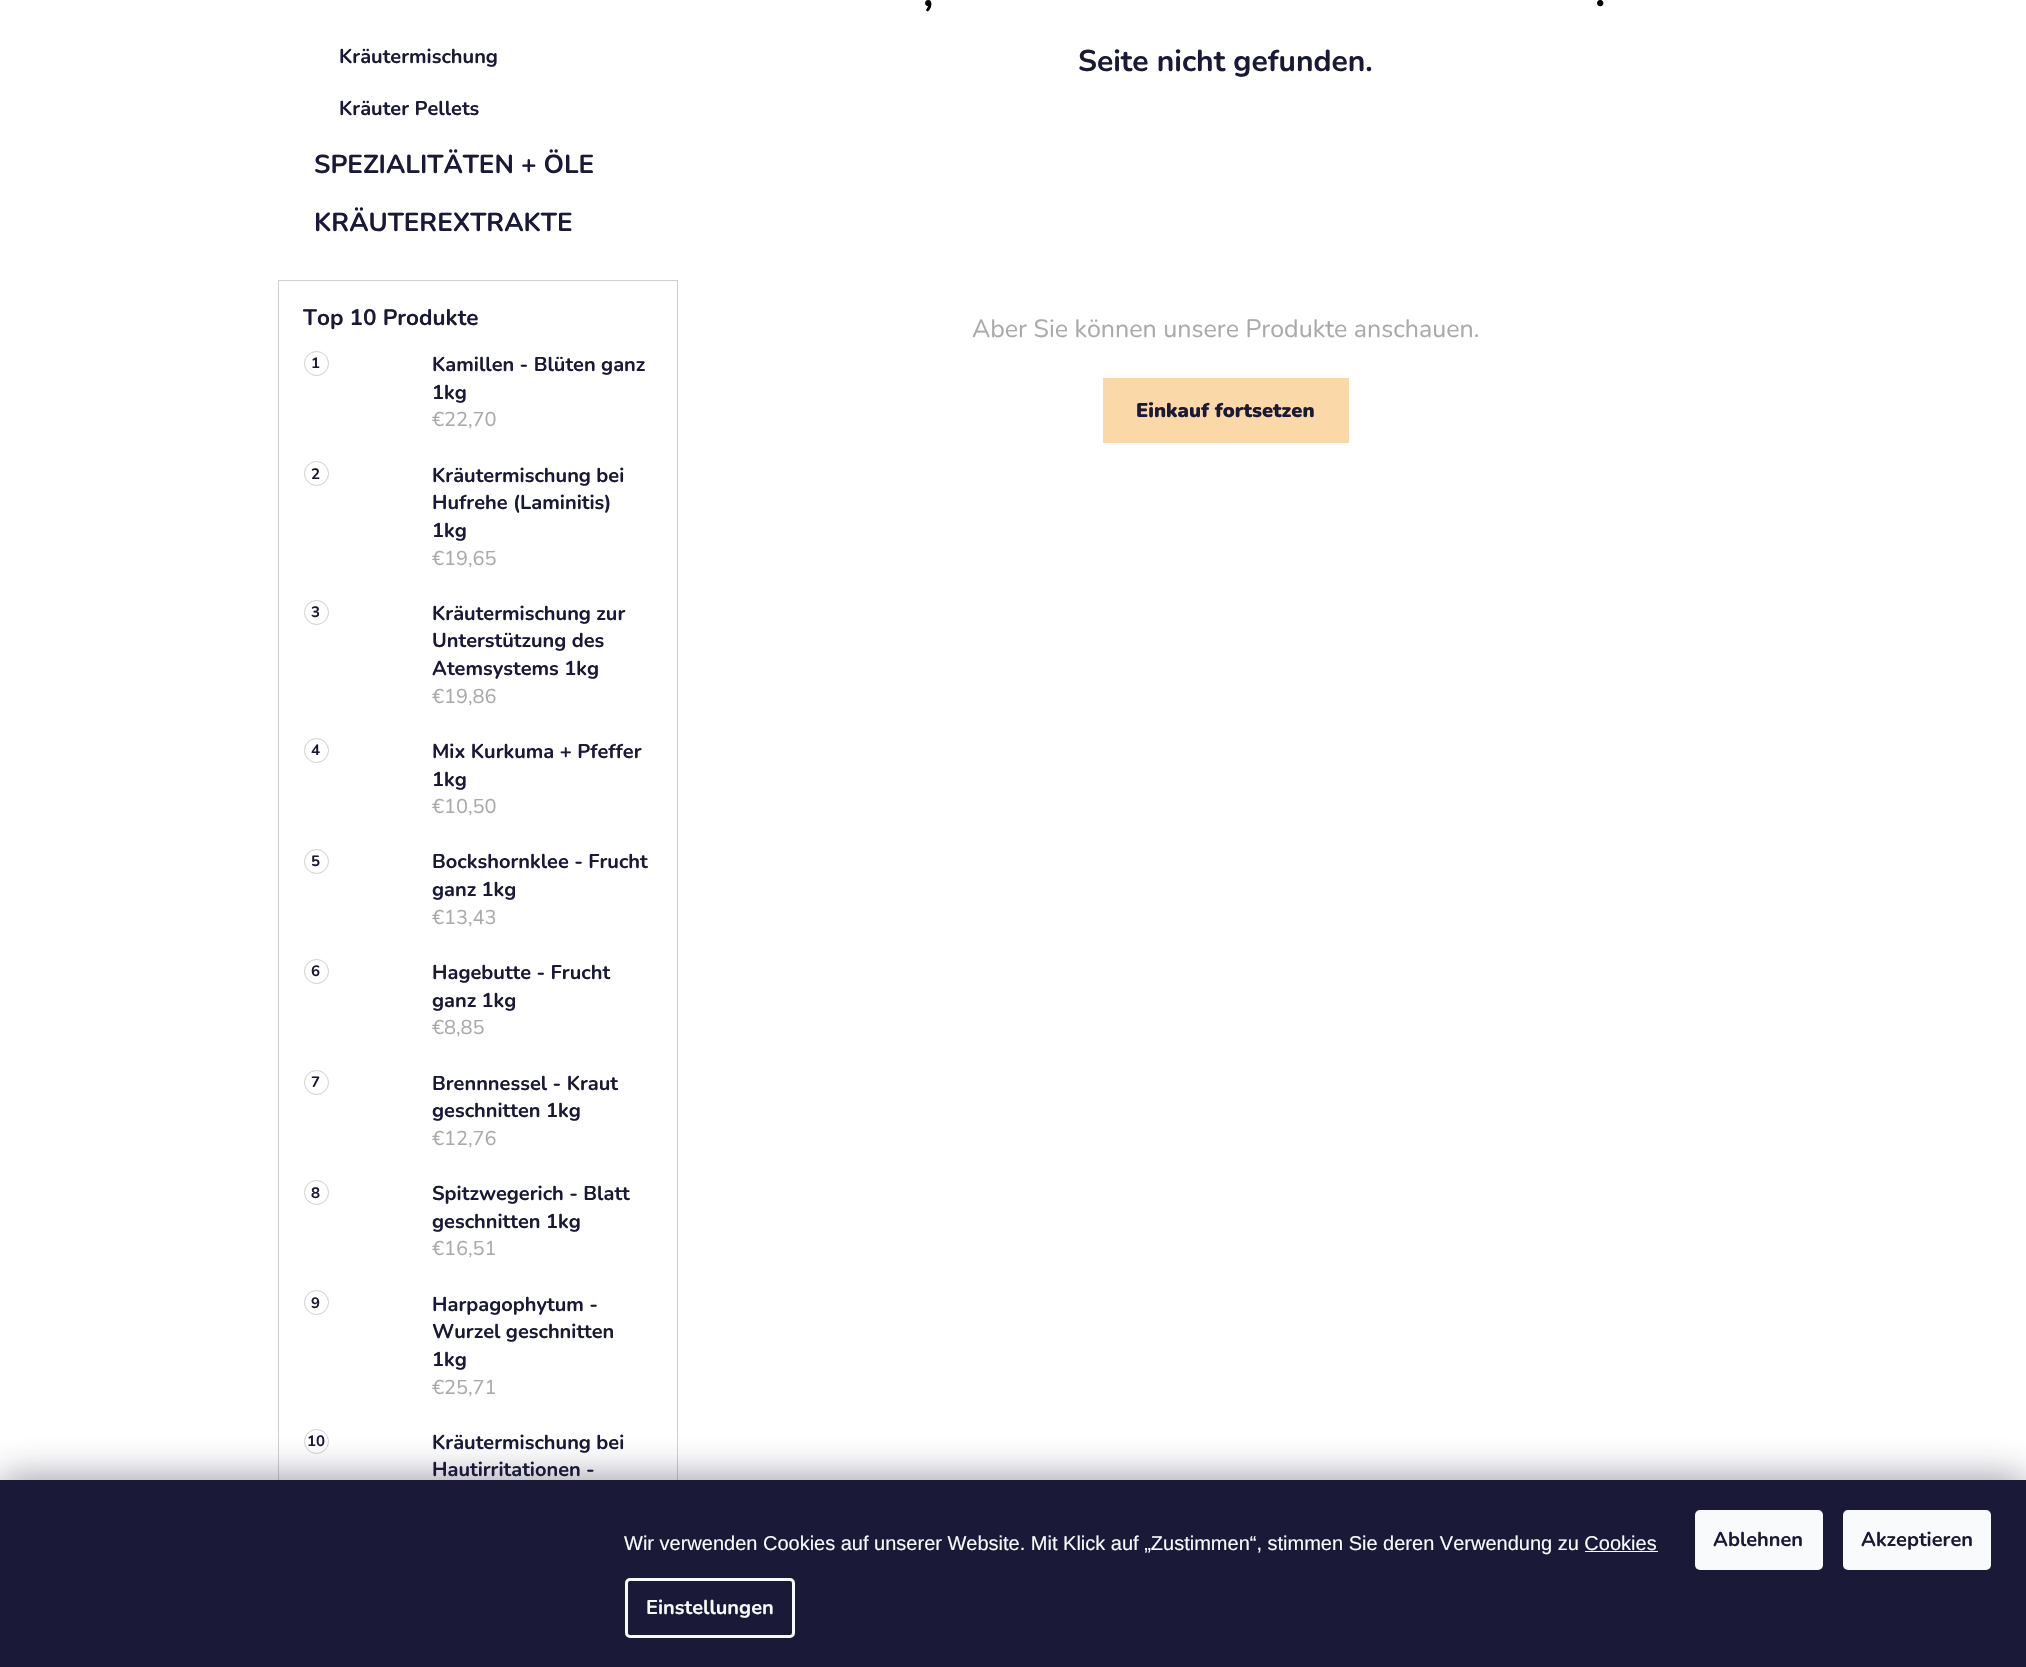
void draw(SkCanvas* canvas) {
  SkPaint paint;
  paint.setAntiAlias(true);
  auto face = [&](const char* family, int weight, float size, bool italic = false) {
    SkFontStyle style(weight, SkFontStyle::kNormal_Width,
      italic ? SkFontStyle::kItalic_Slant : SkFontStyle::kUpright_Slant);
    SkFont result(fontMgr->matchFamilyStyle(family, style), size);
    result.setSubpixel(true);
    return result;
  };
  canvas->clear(0xffffffff);
  paint.setStroke(true);
  paint.setStrokeWidth(1);
  paint.setColor(0xffcfcfcf);
  canvas->drawRect(SkRect::MakeXYWH(278.5f, 280.5f, 399, 1313), paint);
  canvas->drawCircle(316.5f, 363.5f, 12, paint);
  canvas->drawCircle(316.5f, 473.5f, 12, paint);
  canvas->drawCircle(316.5f, 612.5f, 12, paint);
  canvas->drawCircle(316.5f, 750.5f, 12, paint);
  canvas->drawCircle(316.5f, 861.5f, 12, paint);
  canvas->drawCircle(316.5f, 971.5f, 12, paint);
  canvas->drawCircle(316.5f, 1082.5f, 12, paint);
  canvas->drawCircle(316.5f, 1192.5f, 12, paint);
  canvas->drawCircle(316.5f, 1302.5f, 12, paint);
  canvas->drawCircle(316.5f, 1441.5f, 12, paint);
  paint.setStroke(false);
  paint.setColor(0xfffbd8a7);
  canvas->drawRect(SkRect::MakeXYWH(1103, 378, 246, 65), paint);
  paint.setColor(0x801b1939);
  paint.setMaskFilter(SkMaskFilter::MakeBlur(kNormal_SkBlurStyle, 19));
  canvas->drawRect(SkRect::MakeXYWH(0, 1480, 2026, 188), paint);
  paint.setMaskFilter(nullptr);
  paint.setColor(0xff1a1937);
  canvas->drawRect(SkRect::MakeXYWH(0, 1480, 2026, 187), paint);
  paint.setColor(0xfff8fafb);
  canvas->drawRect(SkRect::MakeXYWH(1585, 1551, 73, 1), paint);
  paint.setStroke(true);
  paint.setStrokeWidth(3);
  canvas->drawRoundRect(SkRect::MakeXYWH(626.5f, 1579.5f, 167, 57), 3.5f, 3.5f, paint);
  paint.setStroke(false);
  canvas->drawRoundRect(SkRect::MakeXYWH(1695, 1510, 128, 60), 5, 5, paint);
  canvas->drawRoundRect(SkRect::MakeXYWH(1843, 1510, 148, 60), 5, 5, paint);
  auto f0 = face("Nunito", 700, 20);
  paint.setColor(0xff1a1937);
  canvas->drawString("Kräutermischung", 339, 63, f0, paint);
  canvas->drawString("Kräuter Pellets", 339, 115, f0, paint);
  auto f1 = face("Nunito", 700, 26);
  canvas->drawString("SPEZIALITÄTEN + ÖLE", 314, 173, f1, paint);
  canvas->drawString("KRÄUTEREXTRAKTE", 314, 231, f1, paint);
  auto f2 = face("Nunito", 700, 22.5f);
  canvas->drawString("Top 10 Produkte", 303, 325, f2, paint);
  auto f3 = face("Nunito", 700, 15);
  canvas->drawString("1", 311, 368, f3, paint);
  canvas->drawString("Kamillen - Blüten ganz", 432, 371, f0, paint);
  canvas->drawString("1kg", 432, 399, f0, paint);
  auto f4 = face("Nunito", 400, 20);
  paint.setColor(0xffaaaaaa);
  canvas->drawString("€22,70", 432, 426, f4, paint);
  paint.setColor(0xff1a1937);
  canvas->drawString("2", 311, 479, f3, paint);
  {
    const struct { const char* s; float x, y; } items[] = {
      {"Kräutermischung bei", 432, 482},
      {"Hufrehe (Laminitis)", 432, 509},
      {"1kg", 432, 537},
    };
    for (auto [s, x, y] : items) {
      canvas->drawString(s, x, y, f0, paint);
    }
  }
  paint.setColor(0xffaaaaaa);
  canvas->drawString("€19,65", 432, 565, f4, paint);
  paint.setColor(0xff1a1937);
  canvas->drawString("3", 311, 617, f3, paint);
  {
    const struct { const char* s; float x, y; } items[] = {
      {"Kräutermischung zur", 432, 620},
      {"Unterstützung des", 432, 647},
      {"Atemsystems 1kg", 432, 675},
    };
    for (auto [s, x, y] : items) {
      canvas->drawString(s, x, y, f0, paint);
    }
  }
  paint.setColor(0xffaaaaaa);
  canvas->drawString("€19,86", 432, 703, f4, paint);
  paint.setColor(0xff1a1937);
  canvas->drawString("4", 311, 755, f3, paint);
  canvas->drawString("Mix Kurkuma + Pfeffer", 432, 758, f0, paint);
  canvas->drawString("1kg", 432, 786, f0, paint);
  paint.setColor(0xffaaaaaa);
  canvas->drawString("€10,50", 432, 813, f4, paint);
  paint.setColor(0xff1a1937);
  canvas->drawString("5", 311, 866, f3, paint);
  canvas->drawString("Bockshornklee - Frucht", 432, 868, f0, paint);
  canvas->drawString("ganz 1kg", 432, 896, f0, paint);
  paint.setColor(0xffaaaaaa);
  canvas->drawString("€13,43", 432, 924, f4, paint);
  paint.setColor(0xff1a1937);
  canvas->drawString("6", 311, 976, f3, paint);
  canvas->drawString("Hagebutte - Frucht", 432, 979, f0, paint);
  canvas->drawString("ganz 1kg", 432, 1007, f0, paint);
  paint.setColor(0xffaaaaaa);
  canvas->drawString("€8,85", 432, 1034, f4, paint);
  paint.setColor(0xff1a1937);
  canvas->drawString("7", 311, 1087, f3, paint);
  canvas->drawString("Brennnessel - Kraut", 432, 1090, f0, paint);
  canvas->drawString("geschnitten 1kg", 432, 1117, f0, paint);
  paint.setColor(0xffaaaaaa);
  canvas->drawString("€12,76", 432, 1145, f4, paint);
  paint.setColor(0xff1a1937);
  canvas->drawString("8", 311, 1198, f3, paint);
  canvas->drawString("Spitzwegerich - Blatt", 432, 1200, f0, paint);
  canvas->drawString("geschnitten 1kg", 432, 1228, f0, paint);
  paint.setColor(0xffaaaaaa);
  canvas->drawString("€16,51", 432, 1255, f4, paint);
  paint.setColor(0xff1a1937);
  canvas->drawString("9", 311, 1308, f3, paint);
  {
    const struct { const char* s; float x, y; } items[] = {
      {"Harpagophytum -", 432, 1311},
      {"Wurzel geschnitten", 432, 1338},
      {"1kg", 432, 1366},
    };
    for (auto [s, x, y] : items) {
      canvas->drawString(s, x, y, f0, paint);
    }
  }
  paint.setColor(0xffaaaaaa);
  canvas->drawString("€25,71", 432, 1394, f4, paint);
  paint.setColor(0xff1a1937);
  canvas->drawString("10", 307, 1446, f3, paint);
  canvas->drawString("Kräutermischung bei", 432, 1449, f0, paint);
  canvas->drawString("Hautirritationen -", 432, 1476, f0, paint);
  auto f5 = face("Nunito", 700, 42);
  paint.setColor(0xff000000);
  canvas->drawString(",", 923, 6, f5, paint);
  canvas->drawString(".", 1595, 6, f5, paint);
  auto f6 = face("Nunito", 700, 30);
  paint.setColor(0xff1a1937);
  canvas->drawString("Seite nicht gefunden.", 1078, 71, f6, paint);
  auto f7 = face("Nunito", 400, 25);
  paint.setColor(0xffaaaaaa);
  canvas->drawString("Aber Sie können unsere Produkte anschauen.", 972, 337, f7, paint);
  auto f8 = face("Nunito", 900, 20);
  paint.setColor(0xff1a1937);
  canvas->drawString("Einkauf fortsetzen", 1136, 417, f8, paint);
  auto f9 = face("Liberation Sans", 400, 20);
  paint.setColor(0xfff8fafb);
  canvas->drawString("Wir verwenden Cookies auf unserer Website. Mit Klick auf „Zustimmen“, stimmen Sie deren Verwendung zu Cookies", 624, 1550, f9, paint);
  canvas->drawString("Einstellungen", 646, 1614, f0, paint);
  paint.setColor(0xff1a1937);
  canvas->drawString("Ablehnen", 1713, 1546, f0, paint);
  canvas->drawString("Akzeptieren", 1861, 1546, f0, paint);
}
